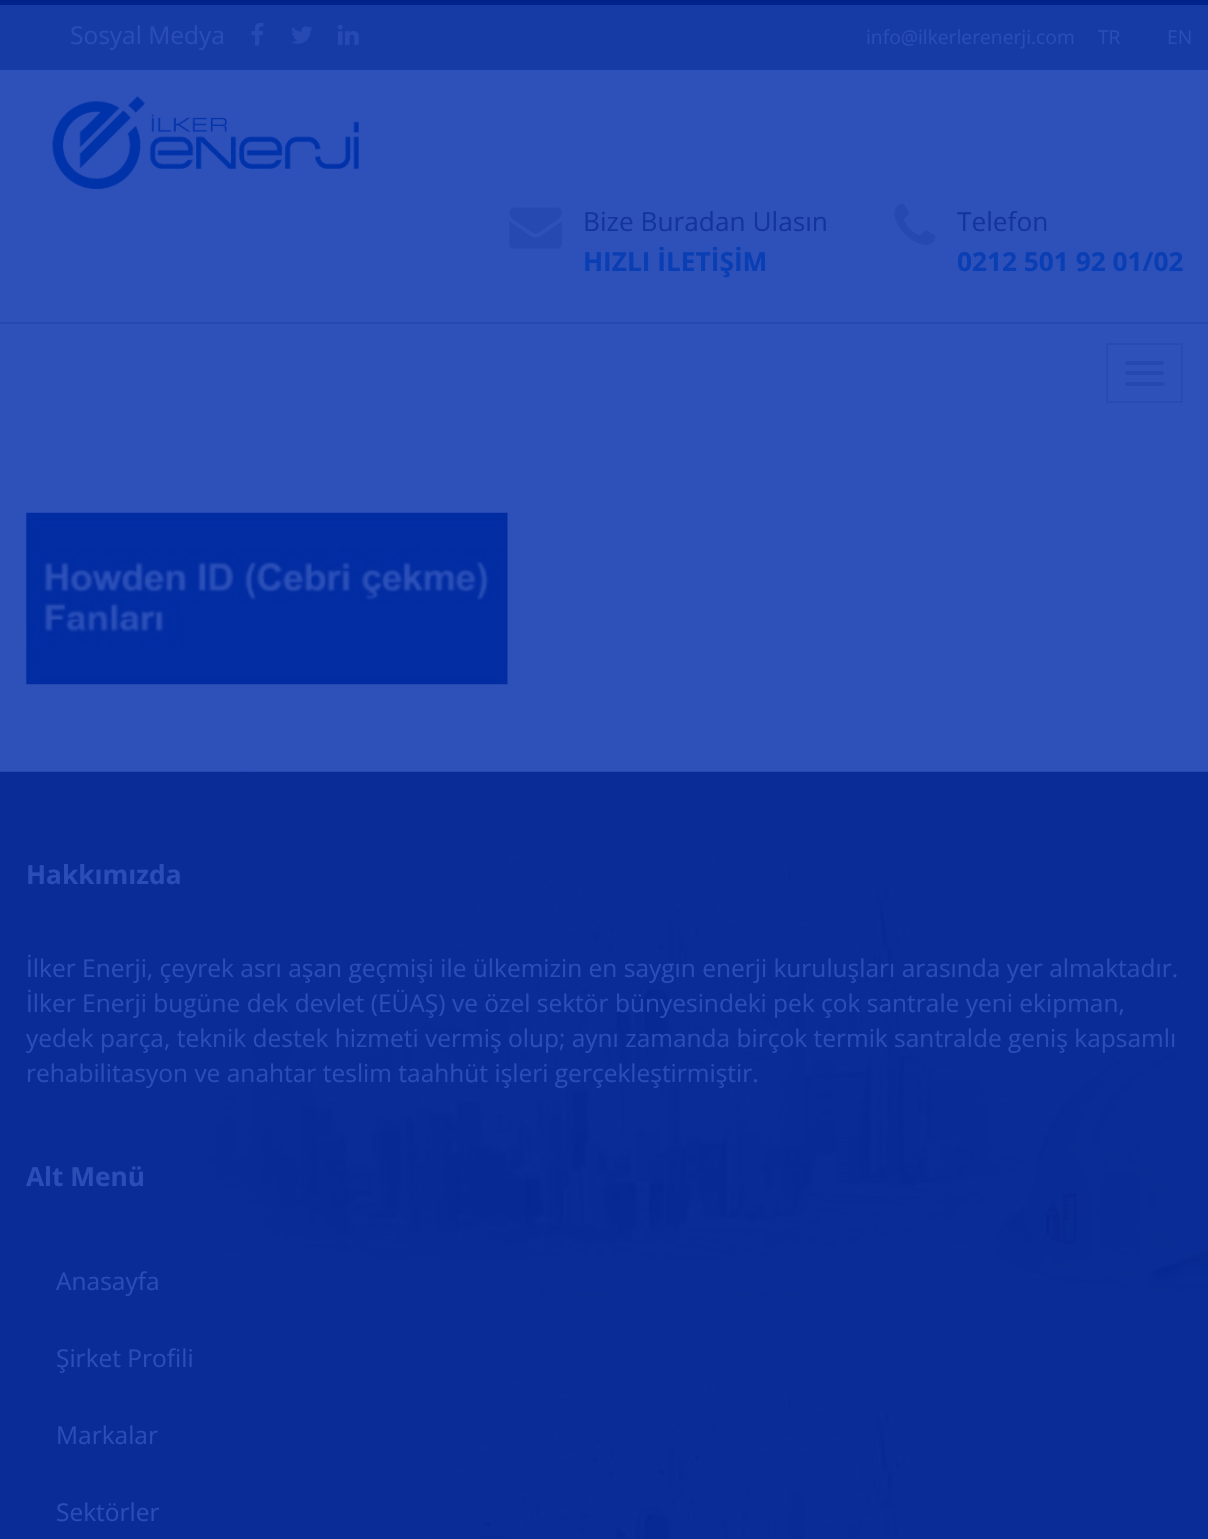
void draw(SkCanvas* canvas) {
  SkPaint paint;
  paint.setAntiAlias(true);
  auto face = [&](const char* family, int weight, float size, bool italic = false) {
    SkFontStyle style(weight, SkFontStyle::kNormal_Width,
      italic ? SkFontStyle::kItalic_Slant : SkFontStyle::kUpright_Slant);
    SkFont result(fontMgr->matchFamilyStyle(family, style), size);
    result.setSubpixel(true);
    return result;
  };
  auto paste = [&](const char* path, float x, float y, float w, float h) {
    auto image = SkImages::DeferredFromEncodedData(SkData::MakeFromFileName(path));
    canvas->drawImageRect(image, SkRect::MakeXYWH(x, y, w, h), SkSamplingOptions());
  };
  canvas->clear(0xff2e50b9);
  paint.setColor(0xff00228b);
  canvas->drawRect(SkRect::MakeXYWH(0, 0, 1208, 5), paint);
  paint.setColor(0xff163ba5);
  canvas->drawRect(SkRect::MakeXYWH(0, 5, 1208, 65), paint);
  paste("img/1.png", 251, 22, 13, 24);
  paste("img/2.png", 291, 26, 22, 18);
  paste("img/3.png", 337, 24, 22, 21);
  paste("img/4.png", 52, 96, 307, 93);
  paste("img/5.png", 509, 207, 53, 42);
  paste("img/6.png", 894, 203, 42, 42);
  paint.setColor(0xff2548b0);
  canvas->drawRect(SkRect::MakeXYWH(0, 322, 1208, 2), paint);
  paint.setStroke(true);
  paint.setStrokeWidth(2);
  paint.setColor(0xff284ab3);
  canvas->drawRect(SkRect::MakeXYWH(1107, 344, 75, 58), paint);
  paint.setStroke(false);
  paint.setColor(0xff2547b0);
  canvas->drawRoundRect(SkRect::MakeXYWH(1125, 361, 39, 4), 2, 2, paint);
  canvas->drawRoundRect(SkRect::MakeXYWH(1125, 371, 39, 4), 2, 2, paint);
  canvas->drawRoundRect(SkRect::MakeXYWH(1125, 382, 39, 4), 2, 2, paint);
  paste("img/7.png", 26, 512, 482, 173);
  paste("img/8.png", 0, 771, 1208, 768);
  auto f0 = face("Open Sans", 400, 24.5f);
  paint.setColor(0xff2a4db6);
  canvas->drawString("Sosyal Medya", 70, 44, f0, paint);
  auto f1 = face("Open Sans", 400, 19.25f);
  {
    const struct { const char* s; float x, y; } items[] = {
      {"info@ilkerlerenerji.com", 866, 44},
      {"TR", 1098, 44},
      {"EN", 1167, 44},
    };
    for (auto [s, x, y] : items) {
      canvas->drawString(s, x, y, f1, paint);
    }
  }
  auto f2 = face("Open Sans", 400, 26.25f);
  paint.setColor(0xff12349d);
  canvas->drawString("Bize Buradan Ulasın", 583, 231, f2, paint);
  auto f3 = face("Open Sans", 700, 26.25f);
  paint.setColor(0xff093eb4);
  canvas->drawString("HIZLI İLETİŞİM", 583, 271, f3, paint);
  paint.setColor(0xff12349d);
  canvas->drawString("Telefon", 957, 231, f2, paint);
  paint.setColor(0xff093eb4);
  canvas->drawString("0212 501 92 01/02", 957, 271, f3, paint);
  paint.setColor(0xff2a4db6);
  canvas->drawString("Hakkımızda", 26, 884, f3, paint);
  {
    const struct { const char* s; float x, y; } items[] = {
      {"İlker Enerji, çeyrek asrı aşan geçmişi ile ülkemizin en saygın enerji kuruluşları arasında yer almaktadır.", 26, 977},
      {"İlker Enerji bugüne dek devlet (EÜAŞ) ve özel sektör bünyesindeki pek çok santrale yeni ekipman,", 26, 1012},
      {"yedek parça, teknik destek hizmeti vermiş olup; aynı zamanda birçok termik santralde geniş kapsamlı", 26, 1047},
      {"rehabilitasyon ve anahtar teslim taahhüt işleri gerçekleştirmiştir.", 26, 1082},
    };
    for (auto [s, x, y] : items) {
      canvas->drawString(s, x, y, f0, paint);
    }
  }
  canvas->drawString("Alt Menü", 26, 1186, f3, paint);
  {
    const struct { const char* s; float x, y; } items[] = {
      {"Anasayfa", 56, 1290},
      {"Şirket Profili", 56, 1367},
      {"Markalar", 56, 1444},
      {"Sektörler", 56, 1521},
    };
    for (auto [s, x, y] : items) {
      canvas->drawString(s, x, y, f0, paint);
    }
  }
}
